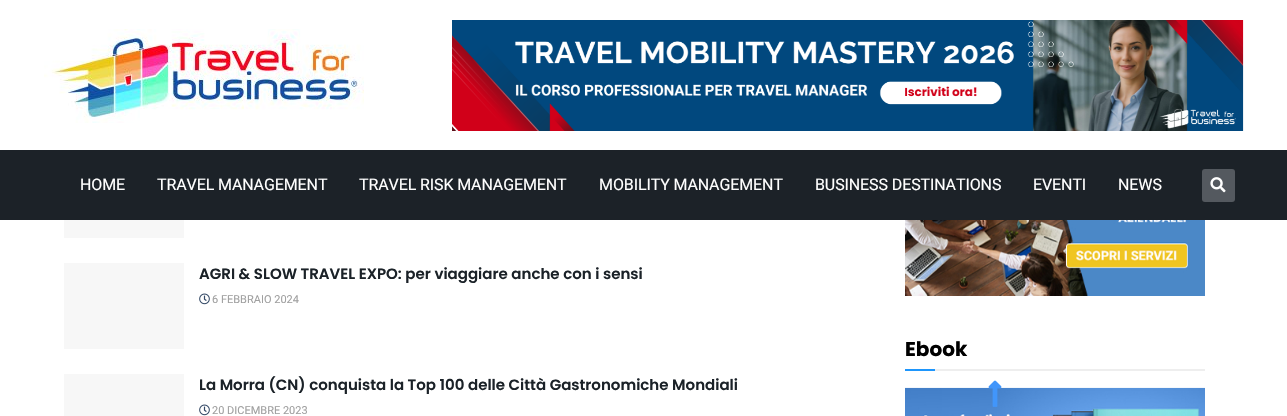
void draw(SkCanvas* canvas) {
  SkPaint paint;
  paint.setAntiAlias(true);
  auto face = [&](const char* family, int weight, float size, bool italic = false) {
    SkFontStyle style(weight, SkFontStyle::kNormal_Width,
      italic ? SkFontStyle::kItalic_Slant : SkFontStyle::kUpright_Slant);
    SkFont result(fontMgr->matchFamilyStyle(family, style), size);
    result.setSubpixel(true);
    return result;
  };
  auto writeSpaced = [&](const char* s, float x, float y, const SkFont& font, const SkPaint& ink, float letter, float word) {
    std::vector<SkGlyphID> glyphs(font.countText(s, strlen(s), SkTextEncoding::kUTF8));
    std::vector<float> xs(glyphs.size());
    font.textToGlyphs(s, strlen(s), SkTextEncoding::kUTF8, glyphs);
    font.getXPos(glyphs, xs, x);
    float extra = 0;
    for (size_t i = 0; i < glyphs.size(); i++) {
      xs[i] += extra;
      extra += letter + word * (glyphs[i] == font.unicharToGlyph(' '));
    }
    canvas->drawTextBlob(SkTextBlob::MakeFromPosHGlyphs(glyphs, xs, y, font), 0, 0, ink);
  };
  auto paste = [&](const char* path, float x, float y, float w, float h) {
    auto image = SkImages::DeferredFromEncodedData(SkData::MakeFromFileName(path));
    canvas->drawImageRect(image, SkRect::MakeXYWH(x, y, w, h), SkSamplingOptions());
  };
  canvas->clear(0xffffffff);
  paste("img/1.png", 44, 29, 320, 94);
  paste("img/2.png", 452, 20, 792, 111);
  paint.setColor(0xff1c2228);
  canvas->drawRect(SkRect::MakeXYWH(0, 150, 1287, 70), paint);
  paint.setColor(0xff54595f);
  canvas->drawRoundRect(SkRect::MakeXYWH(1202, 169, 33, 33), 3, 3, paint);
  paste("img/3.png", 1210, 177, 16, 16);
  paint.setColor(0xfff7f7f7);
  canvas->drawRect(SkRect::MakeXYWH(64, 220, 120, 18), paint);
  canvas->drawRect(SkRect::MakeXYWH(64, 263, 120, 86), paint);
  paste("img/4.png", 199, 293, 11, 12);
  canvas->drawRect(SkRect::MakeXYWH(64, 374, 120, 42), paint);
  paste("img/4.png", 199, 404, 11, 12);
  paste("img/5.png", 905, 220, 300, 76);
  paint.setColor(0xffeeeeee);
  canvas->drawRect(SkRect::MakeXYWH(935, 369, 270, 2), paint);
  paint.setColor(0xff1e96fc);
  canvas->drawRect(SkRect::MakeXYWH(905, 369, 30, 2), paint);
  paste("img/6.png", 905, 387, 300, 29);
  paste("img/7.png", 988, 380, 14, 27);
  auto f0 = face("Heebo", 400, 16);
  paint.setColor(0xffffffff);
  {
    const struct { const char* s; float x, y; } items[] = {
      {"HOME", 80, 190},
      {"TRAVEL MANAGEMENT", 157, 190},
      {"TRAVEL RISK MANAGEMENT", 359, 190},
      {"MOBILITY MANAGEMENT", 599, 190},
      {"BUSINESS DESTINATIONS", 815, 190},
      {"EVENTI", 1033, 190},
      {"NEWS", 1118, 190},
    };
    for (auto [s, x, y] : items) {
      writeSpaced(s, x, y, f0, paint, -0.1f, 0);
    }
  }
  auto f1 = face("Poppins", 600, 15);
  paint.setColor(0xff1b2228);
  canvas->drawString("AGRI & SLOW TRAVEL EXPO: per viaggiare anche con i sensi", 199, 279, f1, paint);
  auto f2 = face("Heebo", 400, 11);
  paint.setColor(0xffa0a0a0);
  canvas->drawString("6 FEBBRAIO 2024", 212, 303, f2, paint);
  paint.setColor(0xff1b2228);
  canvas->drawString("La Morra (CN) conquista la Top 100 delle Città Gastronomiche Mondiali", 199, 390, f1, paint);
  paint.setColor(0xffa0a0a0);
  canvas->drawString("20 DICEMBRE 2023", 212, 414, f2, paint);
  auto f3 = face("Poppins", 700, 20);
  paint.setColor(0xff000000);
  canvas->drawString("Ebook", 905, 356, f3, paint);
}
